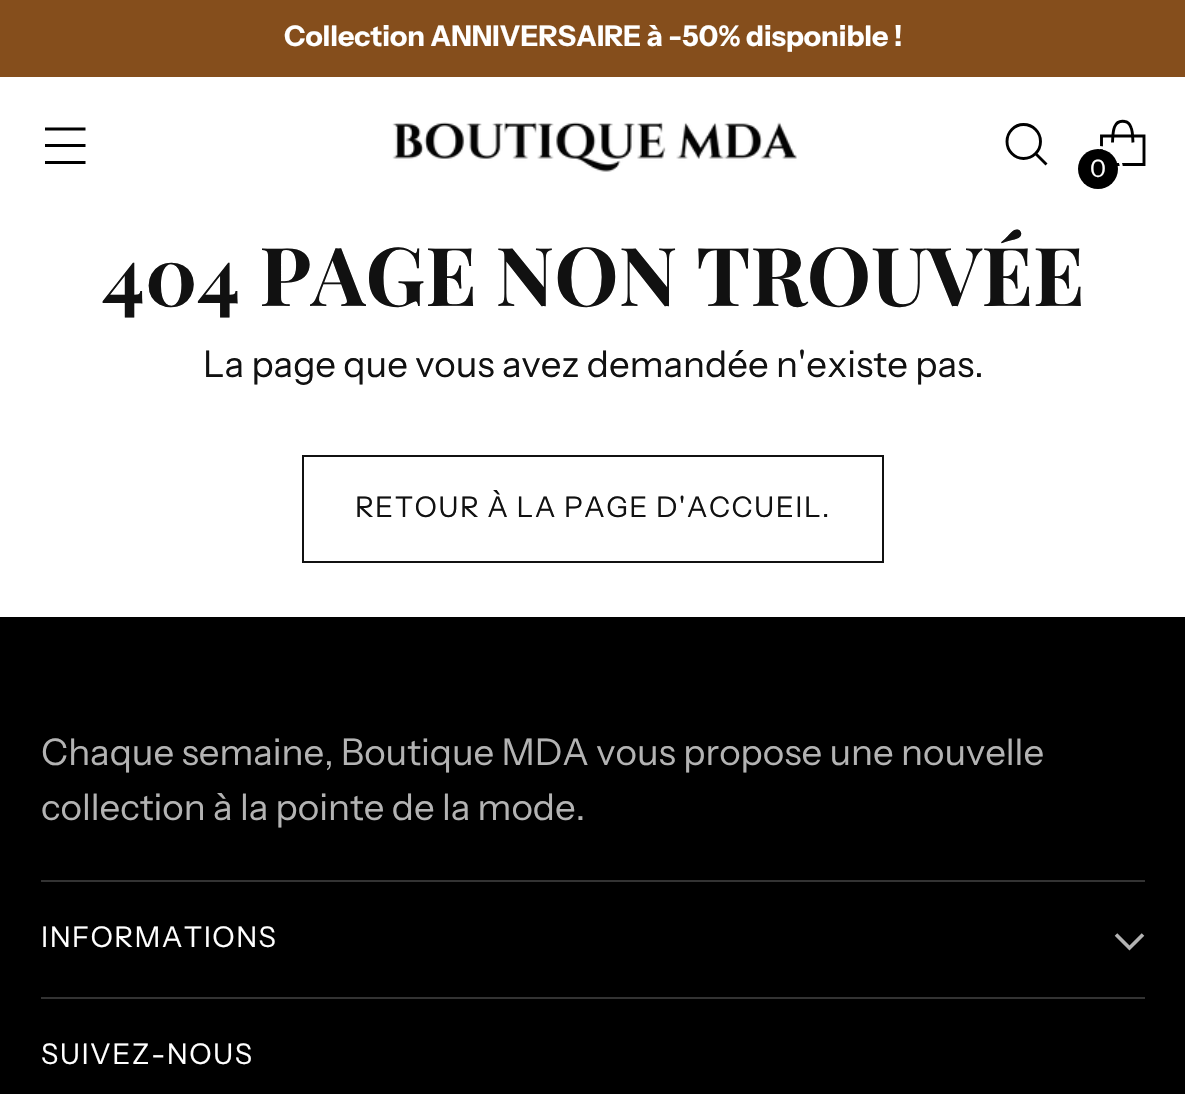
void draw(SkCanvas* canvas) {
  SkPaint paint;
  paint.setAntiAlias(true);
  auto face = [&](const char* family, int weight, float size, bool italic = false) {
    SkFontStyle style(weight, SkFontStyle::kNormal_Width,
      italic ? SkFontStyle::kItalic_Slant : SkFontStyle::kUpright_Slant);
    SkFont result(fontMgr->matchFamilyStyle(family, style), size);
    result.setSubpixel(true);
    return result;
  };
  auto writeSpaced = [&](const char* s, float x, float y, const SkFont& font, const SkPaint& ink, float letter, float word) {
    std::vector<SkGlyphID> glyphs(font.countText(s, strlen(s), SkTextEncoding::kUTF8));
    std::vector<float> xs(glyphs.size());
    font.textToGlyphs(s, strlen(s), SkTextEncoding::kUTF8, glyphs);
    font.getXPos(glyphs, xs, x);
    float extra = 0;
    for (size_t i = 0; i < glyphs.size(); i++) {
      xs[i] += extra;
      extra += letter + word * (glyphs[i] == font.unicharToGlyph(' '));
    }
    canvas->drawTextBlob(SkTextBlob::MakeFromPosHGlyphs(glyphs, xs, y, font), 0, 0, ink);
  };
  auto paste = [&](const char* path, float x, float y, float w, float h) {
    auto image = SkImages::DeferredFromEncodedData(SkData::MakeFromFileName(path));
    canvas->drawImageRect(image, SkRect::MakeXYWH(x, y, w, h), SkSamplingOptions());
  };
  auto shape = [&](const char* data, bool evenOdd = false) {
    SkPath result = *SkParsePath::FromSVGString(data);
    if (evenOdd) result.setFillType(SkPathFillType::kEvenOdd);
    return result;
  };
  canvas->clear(0xffffffff);
  paint.setColor(0xff854e1c);
  canvas->drawRect(SkRect::MakeXYWH(0, 0, 1185, 77), paint);
  paint.setStroke(true);
  paint.setStrokeWidth(2.9f);
  paint.setColor(0xff000000);
  canvas->drawPath(shape("M45 145.5H85.5M45 129H85.5M45 162.5H85.5"), paint);
  paste("img/1.png", 392, 122, 405, 50);
  paint.setStrokeCap(SkPaint::kRound_Cap);
  canvas->drawPath(shape("M1023.5 158.5C1033 158.5 1040.5 151 1040.5 141.5C1040.5 132 1033 124.5 1023.5 124.5C1014.5 124.5 1007 132 1007 141.5C1007 151 1014.5 158.5 1023.5 158.5Z"), paint);
  paint.setStrokeCap(SkPaint::kButt_Cap);
  canvas->drawPath(shape("M1036 154L1046.5 164.5"), paint);
  paint.setStrokeJoin(SkPaint::kBevel_Join);
  canvas->drawPath(shape("M1133 142.5C1132.5 137.5 1133 132 1131 127.5C1130 124.5 1128 122 1125 121.5C1112 119 1113 135 1112.5 142.5"), paint);
  paint.setStrokeJoin(SkPaint::kMiter_Join);
  canvas->drawPath(shape("M1144 164.5V136H1101.5V164.5Z"), paint);
  paint.setStrokeWidth(3);
  paint.setColor(0xffffffff);
  canvas->drawRoundRect(SkRect::MakeXYWH(1077.5f, 147.5f, 44, 45), 22, 22, paint);
  paint.setStroke(false);
  paint.setColor(0xff000000);
  canvas->drawCircle(1098, 169, 20, paint);
  paint.setStroke(true);
  paint.setStrokeWidth(2);
  paint.setColor(0xff111111);
  canvas->drawRect(SkRect::MakeXYWH(303, 456, 580, 106), paint);
  paint.setStroke(false);
  {
    const struct { float x, y, w, h; SkColor color; } items[] = {
      {0, 617, 1185, 477, 0xff000000},
      {41, 880, 1104, 2, 0xff333333},
      {41, 997, 1104, 2, 0xff333333},
    };
    for (auto [x, y, w, h, color] : items) {
      paint.setColor(color);
      canvas->drawRect(SkRect::MakeXYWH(x, y, w, h), paint);
    }
  }
  paint.setStroke(true);
  paint.setStrokeWidth(3.6f);
  paint.setColor(0xffb3b3b3);
  canvas->drawPath(shape("M1116 934.5L1129.5 948L1143 934.5"), paint);
  auto f0 = face("Instrument Sans", 700, 28.5f);
  paint.setStroke(false);
  paint.setColor(0xffffffff);
  canvas->drawString("Collection ANNIVERSAIRE à -50% disponible !", 284, 46, f0, paint);
  auto f1 = face("Instrument Sans", 400, 24);
  canvas->drawString("0", 1090, 177, f1, paint);
  auto f2 = face("Playfair Display", 700, 81.25f);
  paint.setColor(0xff111111);
  canvas->drawString("404 PAGE NON TROUVÉE", 102, 306, f2, paint);
  auto f3 = face("Instrument Sans", 400, 36.65f);
  canvas->drawString("La page que vous avez demandée n'existe pas.", 203, 377, f3, paint);
  auto f4 = face("Instrument Sans", 400, 28.5f);
  writeSpaced("RETOUR À LA PAGE D'ACCUEIL.", 355, 517, f4, paint, 1.4f, 0);
  paint.setColor(0xffb3b3b3);
  canvas->drawString("Chaque semaine, Boutique MDA vous propose une nouvelle", 41, 765, f3, paint);
  canvas->drawString("collection à la pointe de la mode.", 41, 820, f3, paint);
  paint.setColor(0xffffffff);
  writeSpaced("INFORMATIONS", 41, 947, f4, paint, 1.4f, 0);
  writeSpaced("SUIVEZ-NOUS", 41, 1064, f4, paint, 1.4f, 0);
}
